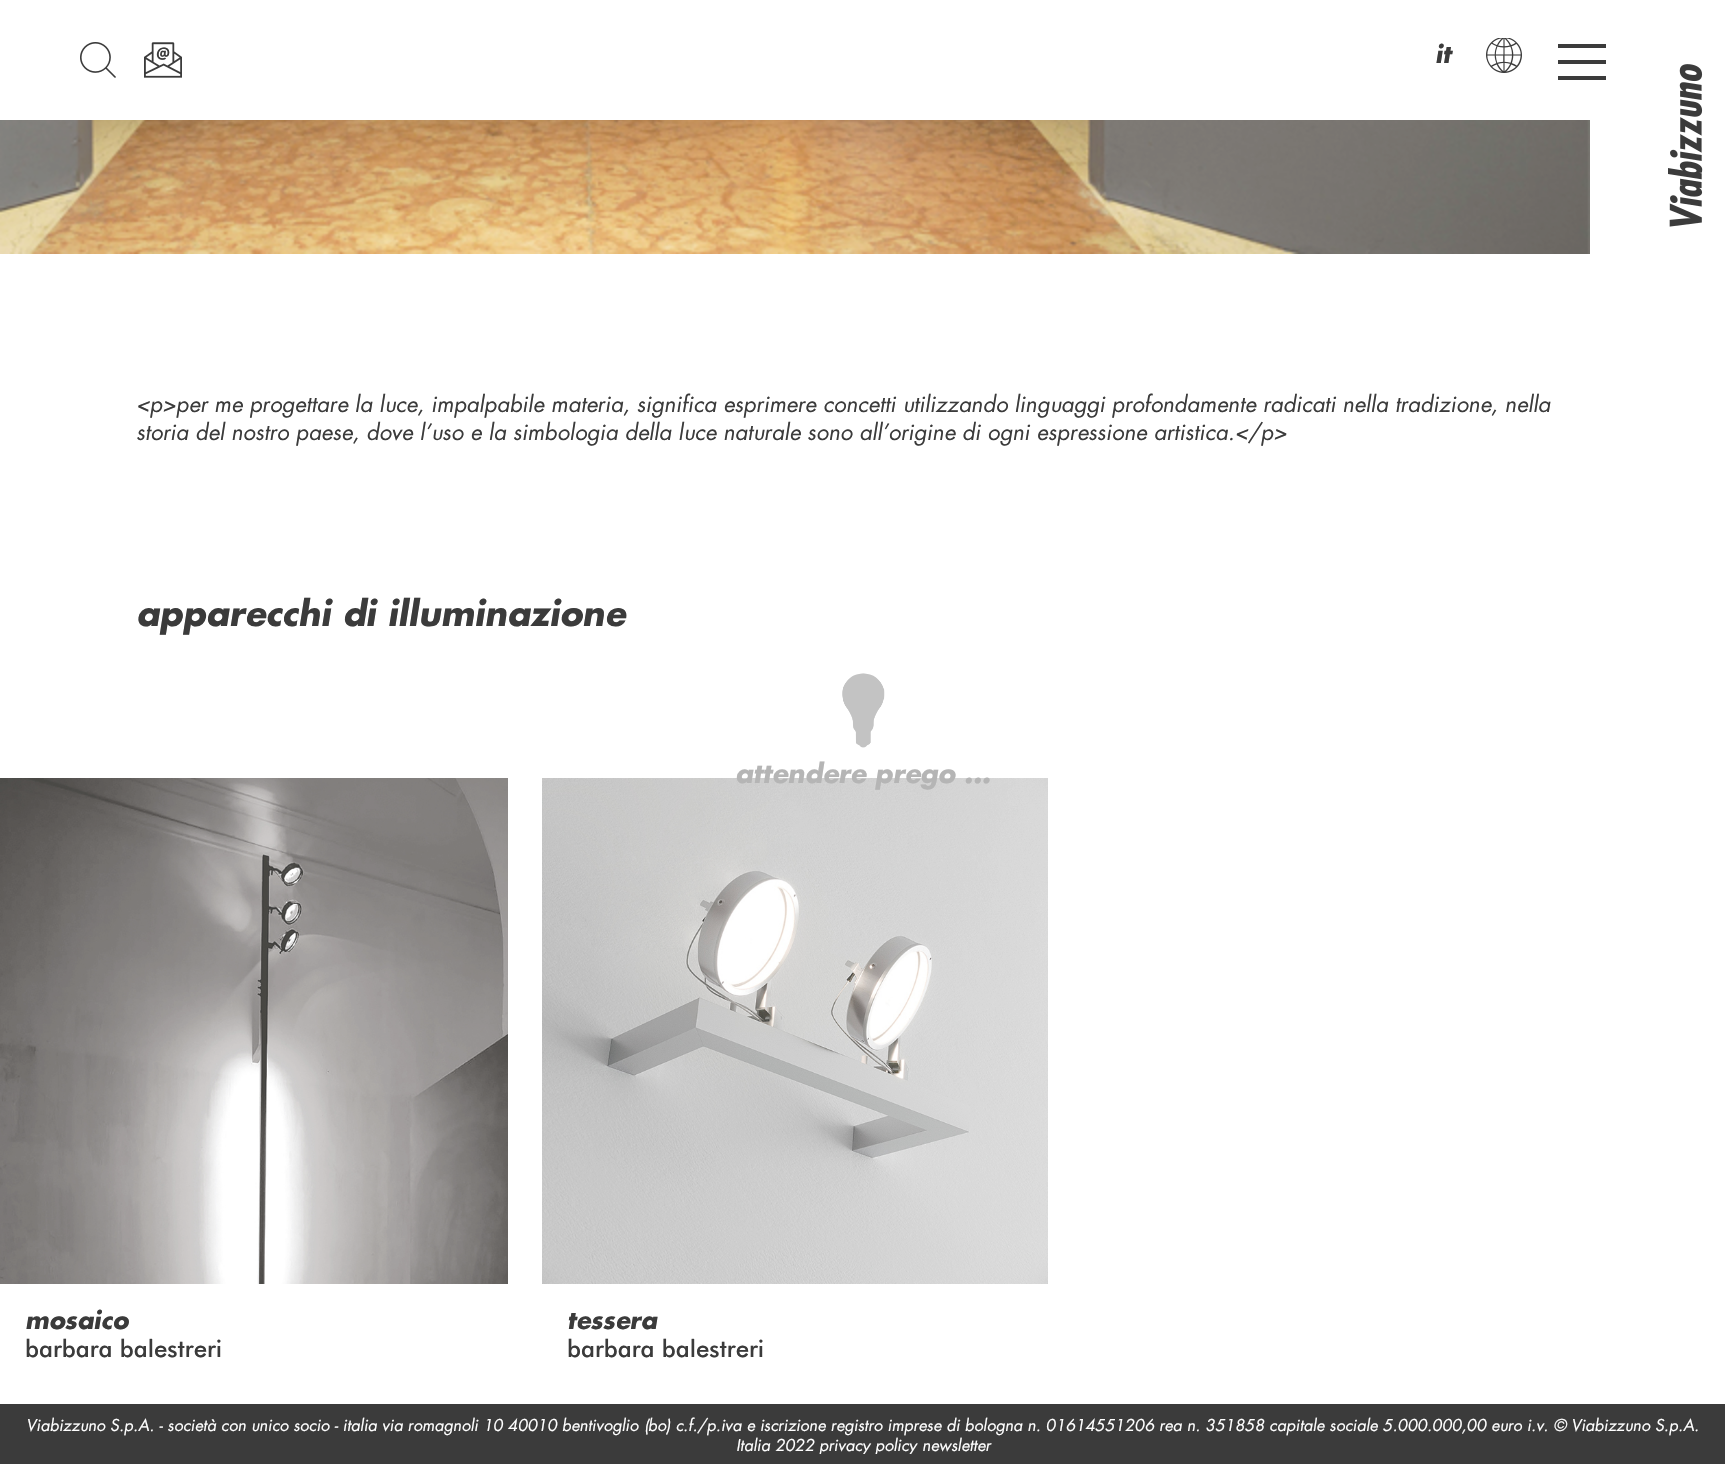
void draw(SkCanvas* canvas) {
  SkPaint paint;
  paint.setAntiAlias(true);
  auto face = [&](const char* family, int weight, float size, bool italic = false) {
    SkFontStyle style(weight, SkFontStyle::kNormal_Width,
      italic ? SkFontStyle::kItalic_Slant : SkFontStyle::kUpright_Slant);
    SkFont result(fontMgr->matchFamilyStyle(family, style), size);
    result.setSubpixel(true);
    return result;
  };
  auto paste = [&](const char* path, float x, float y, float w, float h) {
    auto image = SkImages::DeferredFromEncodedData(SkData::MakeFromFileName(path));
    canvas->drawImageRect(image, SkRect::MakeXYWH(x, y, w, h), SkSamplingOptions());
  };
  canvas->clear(0xffffffff);
  paste("img/1.png", 80, 42, 36, 36);
  paste("img/2.png", 144, 42, 38, 36);
  paste("img/3.png", 1486, 38, 36, 35);
  {
    const struct { float x, y, w, h; SkColor color; } items[] = {
      {1558, 44, 48, 4, 0xff3b3b3b},
      {1558, 60, 48, 4, 0xff3b3b3b},
      {1558, 76, 48, 4, 0xff3b3b3b},
    };
    for (auto [x, y, w, h, color] : items) {
      paint.setColor(color);
      canvas->drawRect(SkRect::MakeXYWH(x, y, w, h), paint);
    }
  }
  paste("img/4.png", 0, 120, 1590, 134);
  paste("img/5.png", 0, 778, 508, 506);
  paste("img/6.png", 542, 778, 506, 506);
  paste("img/7.png", 1668, 64, 35, 163);
  canvas->drawRect(SkRect::MakeXYWH(0, 1404, 1725, 60), paint);
  paste("img/8.png", 842, 673, 43, 75);
  auto f0 = face("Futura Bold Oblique", 700, 24);
  canvas->drawString("it", 1435, 63, f0, paint);
  auto f1 = face("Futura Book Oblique", 400, 22);
  canvas->drawString("<p>per me progettare la luce, impalpabile materia, significa esprimere concetti utilizzando linguaggi profondamente radicati nella tradizione, nella", 136, 412, f1, paint);
  canvas->drawString("storia del nostro paese, dove l’uso e la simbologia della luce naturale sono all’origine di ogni espressione artistica.</p>", 136, 440, f1, paint);
  auto f2 = face("Futura Bold Oblique", 700, 34);
  canvas->drawString("apparecchi di illuminazione", 136, 626, f2, paint);
  canvas->drawString("mosaico", 25, 1329, f0, paint);
  auto f3 = face("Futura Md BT", 500, 24);
  canvas->drawString("barbara balestreri", 25, 1357, f3, paint);
  canvas->drawString("tessera", 567, 1329, f0, paint);
  canvas->drawString("barbara balestreri", 567, 1357, f3, paint);
  auto f4 = face("Futura Book Oblique", 400, 16);
  paint.setColor(0xffffffff);
  canvas->drawString("Viabizzuno S.p.A. - società con unico socio - italia via romagnoli 10 40010 bentivoglio (bo) c.f./p.iva e iscrizione registro imprese di bologna n. 01614551206 rea n. 351858 capitale sociale 5.000.000,00 euro i.v. © Viabizzuno S.p.A.", 26, 1431, f4, paint);
  canvas->drawString("Italia 2022", 736, 1451, f4, paint);
  canvas->save();
  canvas->clipRect(SkRect::MakeXYWH(20, 1414, 1686, 40));
  canvas->drawString("privacy policy", 819, 1451, f4, paint);
  canvas->restore();
  canvas->drawString("newsletter", 922, 1451, f4, paint);
  auto f5 = face("Futura Bold Oblique", 700, 26);
  paint.setColor(0xffb5b5b5);
  canvas->drawString("attendere prego ...", 735, 783, f5, paint);
}
